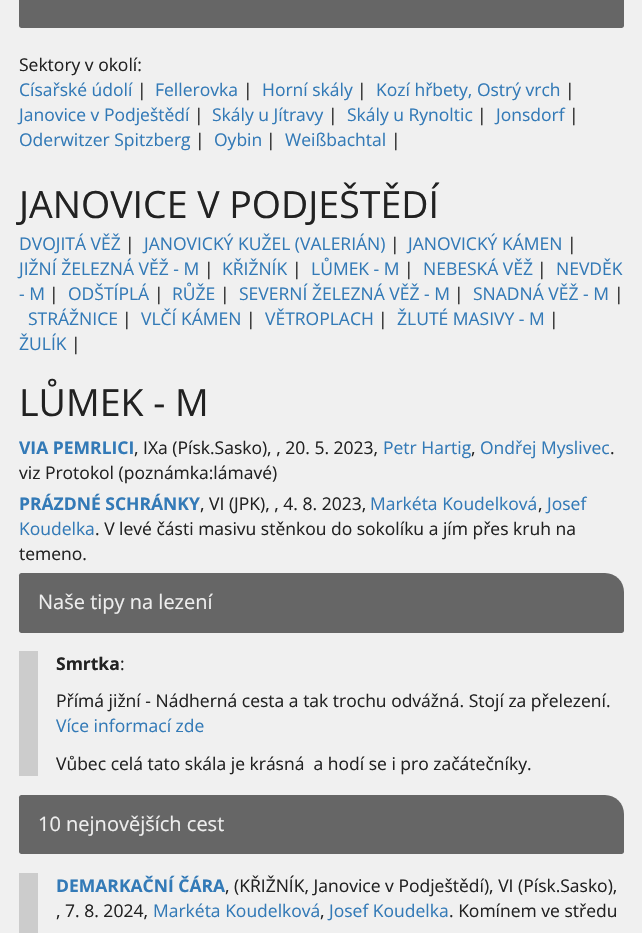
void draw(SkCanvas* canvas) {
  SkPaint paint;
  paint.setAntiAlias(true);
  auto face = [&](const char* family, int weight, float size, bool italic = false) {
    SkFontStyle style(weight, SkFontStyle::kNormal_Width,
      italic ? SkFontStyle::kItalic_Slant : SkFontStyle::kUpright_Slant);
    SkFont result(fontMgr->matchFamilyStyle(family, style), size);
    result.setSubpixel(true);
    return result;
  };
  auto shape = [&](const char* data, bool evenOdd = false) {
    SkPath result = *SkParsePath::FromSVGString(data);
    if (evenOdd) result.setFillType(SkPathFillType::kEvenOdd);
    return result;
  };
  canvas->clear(0xfff0f0f0);
  paint.setColor(0xff666666);
  canvas->drawPath(shape("M21.5-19H605C615.5-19 624-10.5 624 0V25.5C624 27 623 28 621.5 28H21.5C20 28 19 27 19 25.5V-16.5C19-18 20-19 21.5-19Z"), paint);
  canvas->drawPath(shape("M21.5 573H605C615.5 573 624 581.5 624 592V630.5C624 632 623 633 621.5 633H21.5C20 633 19 632 19 630.5V575.5C19 574 20 573 21.5 573Z"), paint);
  paint.setColor(0xffcccccc);
  canvas->drawRect(SkRect::MakeXYWH(19, 651, 19, 125), paint);
  paint.setColor(0xff666666);
  canvas->drawPath(shape("M21.5 795H605C615.5 795 624 803.5 624 814V851.5C624 853 623 854 621.5 854H21.5C20 854 19 853 19 851.5V797.5C19 796 20 795 21.5 795Z"), paint);
  paint.setColor(0xffcccccc);
  canvas->drawRect(SkRect::MakeXYWH(19, 873, 19, 60), paint);
  auto f0 = face("Open Sans", 400, 17.5f);
  paint.setColor(0xff222222);
  canvas->drawString("Sektory v okolí:", 19, 71, f0, paint);
  paint.setColor(0xff337ab7);
  canvas->drawString("Císařské údolí", 19, 96, f0, paint);
  paint.setColor(0xff222222);
  canvas->drawString("|", 137, 96, f0, paint);
  paint.setColor(0xff337ab7);
  canvas->drawString("Fellerovka", 155, 96, f0, paint);
  paint.setColor(0xff222222);
  canvas->drawString("|", 243, 96, f0, paint);
  paint.setColor(0xff337ab7);
  canvas->drawString("Horní skály", 262, 96, f0, paint);
  paint.setColor(0xff222222);
  canvas->drawString("|", 357, 96, f0, paint);
  paint.setColor(0xff337ab7);
  canvas->drawString("Kozí hřbety, Ostrý vrch", 376, 96, f0, paint);
  paint.setColor(0xff222222);
  canvas->drawString("|", 565, 96, f0, paint);
  paint.setColor(0xff337ab7);
  canvas->drawString("Janovice v Podještědí", 19, 121, f0, paint);
  paint.setColor(0xff222222);
  canvas->drawString("|", 194, 121, f0, paint);
  paint.setColor(0xff337ab7);
  canvas->drawString("Skály u Jítravy", 212, 121, f0, paint);
  paint.setColor(0xff222222);
  canvas->drawString("|", 328, 121, f0, paint);
  paint.setColor(0xff337ab7);
  canvas->drawString("Skály u Rynoltic", 347, 121, f0, paint);
  paint.setColor(0xff222222);
  canvas->drawString("|", 477, 121, f0, paint);
  paint.setColor(0xff337ab7);
  canvas->drawString("Jonsdorf", 496, 121, f0, paint);
  paint.setColor(0xff222222);
  canvas->drawString("|", 569, 121, f0, paint);
  paint.setColor(0xff337ab7);
  canvas->drawString("Oderwitzer Spitzberg", 19, 146, f0, paint);
  paint.setColor(0xff222222);
  canvas->drawString("|", 195, 146, f0, paint);
  paint.setColor(0xff337ab7);
  canvas->drawString("Oybin", 214, 146, f0, paint);
  paint.setColor(0xff222222);
  canvas->drawString("|", 266, 146, f0, paint);
  paint.setColor(0xff337ab7);
  canvas->drawString("Weißbachtal", 285, 146, f0, paint);
  paint.setColor(0xff222222);
  canvas->drawString("|", 391, 146, f0, paint);
  auto f1 = face("Open Sans", 400, 37.5f);
  canvas->drawString("JANOVICE V PODJEŠTĚDÍ", 19, 218, f1, paint);
  paint.setColor(0xff337ab7);
  canvas->drawString("DVOJITÁ VĚŽ", 19, 250, f0, paint);
  paint.setColor(0xff222222);
  canvas->drawString("|", 125, 250, f0, paint);
  paint.setColor(0xff337ab7);
  canvas->drawString("JANOVICKÝ KUŽEL (VALERIÁN)", 144, 250, f0, paint);
  paint.setColor(0xff222222);
  canvas->drawString("|", 390, 250, f0, paint);
  paint.setColor(0xff337ab7);
  canvas->drawString("JANOVICKÝ KÁMEN", 408, 250, f0, paint);
  paint.setColor(0xff222222);
  canvas->drawString("|", 567, 250, f0, paint);
  paint.setColor(0xff337ab7);
  canvas->drawString("JIŽNÍ ŽELEZNÁ VĚŽ - M", 19, 275, f0, paint);
  paint.setColor(0xff222222);
  canvas->drawString("|", 204, 275, f0, paint);
  paint.setColor(0xff337ab7);
  canvas->drawString("KŘIŽNÍK", 222, 275, f0, paint);
  paint.setColor(0xff222222);
  canvas->drawString("|", 292, 275, f0, paint);
  paint.setColor(0xff337ab7);
  canvas->drawString("LŮMEK - M", 311, 275, f0, paint);
  paint.setColor(0xff222222);
  canvas->drawString("|", 404, 275, f0, paint);
  paint.setColor(0xff337ab7);
  canvas->drawString("NEBESKÁ VĚŽ", 423, 275, f0, paint);
  paint.setColor(0xff222222);
  canvas->drawString("|", 537, 275, f0, paint);
  paint.setColor(0xff337ab7);
  canvas->drawString("NEVDĚK", 556, 275, f0, paint);
  canvas->drawString("- M", 19, 300, f0, paint);
  paint.setColor(0xff222222);
  canvas->drawString("|", 49, 300, f0, paint);
  paint.setColor(0xff337ab7);
  canvas->drawString("ODŠTÍPLÁ", 68, 300, f0, paint);
  paint.setColor(0xff222222);
  canvas->drawString("|", 154, 300, f0, paint);
  paint.setColor(0xff337ab7);
  canvas->drawString("RŮŽE", 172, 300, f0, paint);
  paint.setColor(0xff222222);
  canvas->drawString("|", 220, 300, f0, paint);
  paint.setColor(0xff337ab7);
  canvas->drawString("SEVERNÍ ŽELEZNÁ VĚŽ - M", 239, 300, f0, paint);
  paint.setColor(0xff222222);
  canvas->drawString("|", 454, 300, f0, paint);
  paint.setColor(0xff337ab7);
  canvas->drawString("SNADNÁ VĚŽ - M", 473, 300, f0, paint);
  paint.setColor(0xff222222);
  canvas->drawString("|", 614, 300, f0, paint);
  paint.setColor(0xff337ab7);
  canvas->drawString("STRÁŽNICE", 28, 325, f0, paint);
  paint.setColor(0xff222222);
  canvas->drawString("|", 122, 325, f0, paint);
  paint.setColor(0xff337ab7);
  canvas->drawString("VLČÍ KÁMEN", 141, 325, f0, paint);
  paint.setColor(0xff222222);
  canvas->drawString("|", 246, 325, f0, paint);
  paint.setColor(0xff337ab7);
  canvas->drawString("VĚTROPLACH", 265, 325, f0, paint);
  paint.setColor(0xff222222);
  canvas->drawString("|", 378, 325, f0, paint);
  paint.setColor(0xff337ab7);
  canvas->drawString("ŽLUTÉ MASIVY - M", 397, 325, f0, paint);
  paint.setColor(0xff222222);
  canvas->drawString("|", 549, 325, f0, paint);
  paint.setColor(0xff337ab7);
  canvas->drawString("ŽULÍK", 19, 350, f0, paint);
  paint.setColor(0xff222222);
  canvas->drawString("|", 71, 350, f0, paint);
  canvas->drawString("LŮMEK - M", 19, 416, f1, paint);
  auto f2 = face("Open Sans", 700, 17.5f);
  paint.setColor(0xff337ab7);
  canvas->drawString("VIA PEMRLICI", 19, 454, f2, paint);
  paint.setColor(0xff222222);
  canvas->drawString(", IXa (Písk.Sasko), , 20. 5. 2023,", 134, 454, f0, paint);
  paint.setColor(0xff337ab7);
  canvas->drawString("Petr Hartig", 383, 454, f0, paint);
  paint.setColor(0xff222222);
  canvas->drawString(",", 471, 454, f0, paint);
  paint.setColor(0xff337ab7);
  canvas->drawString("Ondřej Myslivec", 480, 454, f0, paint);
  paint.setColor(0xff222222);
  canvas->drawString(".", 610, 454, f0, paint);
  canvas->drawString("viz Protokol (poznámka:lámavé)", 19, 479, f0, paint);
  paint.setColor(0xff337ab7);
  canvas->drawString("PRÁZDNÉ SCHRÁNKY", 19, 510, f2, paint);
  paint.setColor(0xff222222);
  canvas->drawString(", VI (JPK), , 4. 8. 2023,", 200, 510, f0, paint);
  paint.setColor(0xff337ab7);
  canvas->drawString("Markéta Koudelková", 370, 510, f0, paint);
  paint.setColor(0xff222222);
  canvas->drawString(",", 538, 510, f0, paint);
  paint.setColor(0xff337ab7);
  canvas->drawString("Josef", 547, 510, f0, paint);
  canvas->drawString("Koudelka", 19, 535, f0, paint);
  paint.setColor(0xff222222);
  canvas->drawString(". V levé části masivu stěnkou do sokolíku a jím přes kruh na", 95, 535, f0, paint);
  canvas->drawString("temeno.", 19, 560, f0, paint);
  auto f3 = face("Open Sans", 400, 20);
  paint.setColor(0xffeeeeee);
  canvas->drawString("Naše tipy na lezení", 38, 609, f3, paint);
  paint.setColor(0xff222222);
  canvas->drawString("Smrtka", 56, 670, f2, paint);
  canvas->drawString(":", 120, 670, f0, paint);
  canvas->drawString("Přímá jižní - Nádherná cesta a tak trochu odvážná. Stojí za přelezení.", 56, 707, f0, paint);
  paint.setColor(0xff337ab7);
  canvas->drawString("Více informací zde", 56, 732, f0, paint);
  paint.setColor(0xff222222);
  canvas->drawString("Vůbec celá tato skála je krásná  a hodí se i pro začátečníky.", 56, 770, f0, paint);
  paint.setColor(0xffeeeeee);
  canvas->drawString("10 nejnovějších cest", 38, 831, f3, paint);
  paint.setColor(0xff337ab7);
  canvas->drawString("DEMARKAČNÍ ČÁRA", 56, 892, f2, paint);
  paint.setColor(0xff222222);
  canvas->drawString(", (KŘIŽNÍK, Janovice v Podještědí), VI (Písk.Sasko),", 225, 892, f0, paint);
  canvas->drawString(", 7. 8. 2024,", 56, 917, f0, paint);
  paint.setColor(0xff337ab7);
  canvas->drawString("Markéta Koudelková", 153, 917, f0, paint);
  paint.setColor(0xff222222);
  canvas->drawString(",", 320, 917, f0, paint);
  paint.setColor(0xff337ab7);
  canvas->drawString("Josef Koudelka", 329, 917, f0, paint);
  paint.setColor(0xff222222);
  canvas->drawString(". Komínem ve středu", 449, 917, f0, paint);
}
